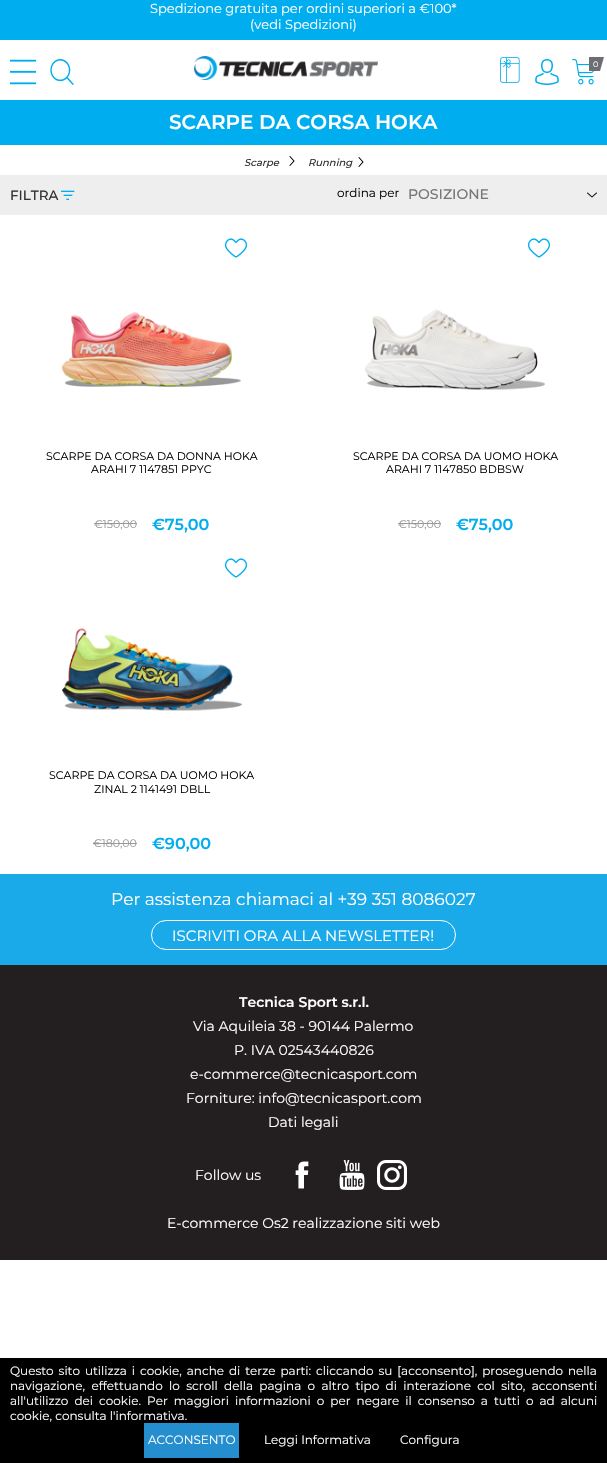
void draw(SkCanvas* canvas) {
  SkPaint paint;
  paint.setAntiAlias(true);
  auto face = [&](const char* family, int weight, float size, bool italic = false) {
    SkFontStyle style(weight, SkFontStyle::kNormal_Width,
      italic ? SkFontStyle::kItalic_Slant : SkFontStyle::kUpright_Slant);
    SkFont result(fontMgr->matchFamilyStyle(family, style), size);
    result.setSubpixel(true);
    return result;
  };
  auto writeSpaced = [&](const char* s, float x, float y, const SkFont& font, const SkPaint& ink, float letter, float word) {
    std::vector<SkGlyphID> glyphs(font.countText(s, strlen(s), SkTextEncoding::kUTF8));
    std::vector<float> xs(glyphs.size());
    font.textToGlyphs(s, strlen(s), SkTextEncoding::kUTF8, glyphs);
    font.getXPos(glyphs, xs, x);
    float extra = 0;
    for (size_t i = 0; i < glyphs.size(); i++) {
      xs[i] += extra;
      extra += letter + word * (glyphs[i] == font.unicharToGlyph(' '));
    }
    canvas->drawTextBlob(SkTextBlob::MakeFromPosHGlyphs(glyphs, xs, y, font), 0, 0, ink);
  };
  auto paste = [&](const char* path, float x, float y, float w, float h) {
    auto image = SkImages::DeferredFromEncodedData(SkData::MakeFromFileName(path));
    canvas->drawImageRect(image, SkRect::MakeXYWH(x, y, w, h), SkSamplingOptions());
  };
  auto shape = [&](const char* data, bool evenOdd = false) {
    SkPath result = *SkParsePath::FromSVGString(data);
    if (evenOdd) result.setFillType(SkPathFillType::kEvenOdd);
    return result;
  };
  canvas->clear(0xffffffff);
  paint.setColor(0xff00adee);
  canvas->drawRect(SkRect::MakeXYWH(0, 0, 607, 40), paint);
  paste("img/1.png", 10, 59, 26, 26);
  paste("img/2.png", 50, 59, 24, 26);
  paste("img/3.png", 194, 56, 184, 24);
  paste("img/4.png", 500, 57, 20, 26);
  paste("img/5.png", 535, 59, 24, 26);
  paste("img/6.png", 572, 59, 22, 26);
  paint.setColor(0xff6d6e71);
  canvas->drawRect(SkRect::MakeXYWH(589, 57, 11, 14), paint);
  canvas->drawPath(shape("M598 57H604L600 71Z"), paint);
  paint.setColor(0xff00adee);
  canvas->drawRect(SkRect::MakeXYWH(0, 100, 607, 45), paint);
  paint.setColor(0xffeeeeee);
  canvas->drawRect(SkRect::MakeXYWH(0, 175, 607, 40), paint);
  paste("img/7.png", 61, 190, 14, 10);
  paste("img/8.png", 61, 312, 180, 75);
  paste("img/9.png", 225, 238, 22, 20);
  paint.setColor(0xff999999);
  canvas->drawRect(SkRect::MakeXYWH(94, 523, 43, 1), paint);
  paste("img/10.png", 365, 309, 180, 81);
  paste("img/9.png", 528, 238, 22, 20);
  canvas->drawRect(SkRect::MakeXYWH(398, 523, 43, 1), paint);
  paste("img/11.png", 62, 628, 180, 83);
  paste("img/9.png", 225, 558, 22, 20);
  canvas->drawRect(SkRect::MakeXYWH(93, 843, 44, 1), paint);
  paint.setColor(0xff1baae9);
  canvas->drawRect(SkRect::MakeXYWH(0, 874, 607, 91), paint);
  paint.setStroke(true);
  paint.setStrokeWidth(1);
  paint.setColor(0xffffffff);
  canvas->drawRoundRect(SkRect::MakeXYWH(151.5f, 920.5f, 304, 29), 14.5f, 14.5f, paint);
  paint.setStroke(false);
  paint.setColor(0xff231f20);
  canvas->drawRect(SkRect::MakeXYWH(0, 965, 607, 295), paint);
  paste("img/12.png", 295, 1161, 14, 28);
  paste("img/13.png", 339, 1160, 26, 30);
  paste("img/14.png", 377, 1160, 30, 30);
  paint.setColor(0xff000000);
  canvas->drawRect(SkRect::MakeXYWH(0, 1358, 607, 105), paint);
  paint.setColor(0xff248ece);
  canvas->drawRect(SkRect::MakeXYWH(144, 1423, 95, 35), paint);
  auto f0 = face("Montserrat", 400, 13);
  paint.setColor(0xffffffff);
  canvas->drawString("Spedizione gratuita per ordini superiori a €100*", 150, 13, f0, paint);
  canvas->drawString("(vedi Spedizioni)", 250, 29, f0, paint);
  auto f1 = face("Montserrat", 400, 8);
  canvas->drawString("0", 593, 67, f1, paint);
  auto f2 = face("Montserrat", 600, 20);
  canvas->drawString("SCARPE DA CORSA HOKA", 169, 129, f2, paint);
  auto f3 = face("Montserrat", 500, 10, true);
  paint.setColor(0xff333333);
  canvas->drawString("Scarpe", 244, 166, f3, paint);
  auto f4 = face("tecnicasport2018", 400, 10);
  paint.setColor(0xff000000);
  canvas->drawString(">", 287, 166, f4, paint);
  paint.setColor(0xff333333);
  canvas->drawString("Running", 308, 166, f3, paint);
  paint.setColor(0xff000000);
  canvas->drawString(">", 356, 167, f4, paint);
  auto f5 = face("Montserrat", 500, 13.5f);
  paint.setColor(0xff333333);
  canvas->drawString("FILTRA", 10, 200, f5, paint);
  auto f6 = face("Montserrat", 400, 12);
  paint.setColor(0xff000000);
  canvas->drawString("ordina per", 337, 197, f6, paint);
  auto f7 = face("Montserrat", 500, 14);
  paint.setColor(0xff777777);
  canvas->drawString("POSIZIONE", 408, 199, f7, paint);
  paint.setColor(0xff000000);
  canvas->drawString("\\", 587, 200, f4, paint);
  auto f8 = face("Montserrat", 400, 11);
  canvas->drawString("SCARPE DA CORSA DA DONNA HOKA", 46, 460, f8, paint);
  canvas->drawString("ARAHI 7 1147851 PPYC", 91, 473, f8, paint);
  paint.setColor(0xff999999);
  canvas->drawString("€150,00", 94, 528, f8, paint);
  auto f9 = face("Montserrat", 600, 16);
  paint.setColor(0xff00adee);
  canvas->drawString("€75,00", 152, 530, f9, paint);
  paint.setColor(0xff000000);
  canvas->drawString("SCARPE DA CORSA DA UOMO HOKA", 353, 460, f8, paint);
  canvas->drawString("ARAHI 7 1147850 BDBSW", 386, 473, f8, paint);
  paint.setColor(0xff999999);
  canvas->drawString("€150,00", 398, 528, f8, paint);
  paint.setColor(0xff00adee);
  canvas->drawString("€75,00", 456, 530, f9, paint);
  paint.setColor(0xff000000);
  canvas->drawString("SCARPE DA CORSA DA UOMO HOKA", 49, 779, f8, paint);
  canvas->drawString("ZINAL 2 1141491 DBLL", 94, 793, f8, paint);
  paint.setColor(0xff999999);
  canvas->drawString("€180,00", 93, 847, f8, paint);
  paint.setColor(0xff00adee);
  canvas->drawString("€90,00", 152, 849, f9, paint);
  auto f10 = face("Montserrat", 400, 17);
  paint.setColor(0xffffffff);
  canvas->drawString("Per assistenza chiamaci al +39 351 8086027", 111, 905, f10, paint);
  auto f11 = face("Montserrat", 400, 15);
  canvas->drawString("ISCRIVITI ORA ALLA NEWSLETTER!", 172, 941, f11, paint);
  auto f12 = face("Montserrat", 600, 14);
  canvas->drawString("Tecnica Sport s.r.l.", 239, 1007, f12, paint);
  auto f13 = face("Montserrat", 400, 14);
  {
    const struct { const char* s; float x, y; } items[] = {
      {"Via Aquileia 38 - 90144 Palermo", 193, 1031},
      {"P. IVA 02543440826", 234, 1055},
      {"e-commerce@tecnicasport.com", 190, 1079},
      {"Forniture: info@tecnicasport.com", 186, 1103},
      {"Dati legali", 268, 1127},
      {"E-commerce Os2 realizzazione siti web", 167, 1228},
      {"Follow us", 195, 1180},
    };
    for (auto [s, x, y] : items) {
      canvas->drawString(s, x, y, f13, paint);
    }
  }
  writeSpaced("Questo sito utilizza i cookie, anche di terze parti: cliccando su [acconsento], proseguendo nella", 10, 1375, f6, paint, 0, 1.75f);
  writeSpaced("navigazione, effettuando lo scroll della pagina o altro tipo di interazione col sito, acconsenti", 10, 1390, f6, paint, 0, 3.25f);
  writeSpaced("all'utilizzo dei cookie. Per maggiori informazioni o per negare il consenso a tutti o ad alcuni", 10, 1405, f6, paint, 0, 2.9f);
  {
    const struct { const char* s; float x, y; } items[] = {
      {"cookie, consulta l'informativa.", 10, 1420},
      {"ACCONSENTO", 148, 1444},
      {"Leggi Informativa", 264, 1444},
      {"Configura", 400, 1444},
    };
    for (auto [s, x, y] : items) {
      canvas->drawString(s, x, y, f6, paint);
    }
  }
}
